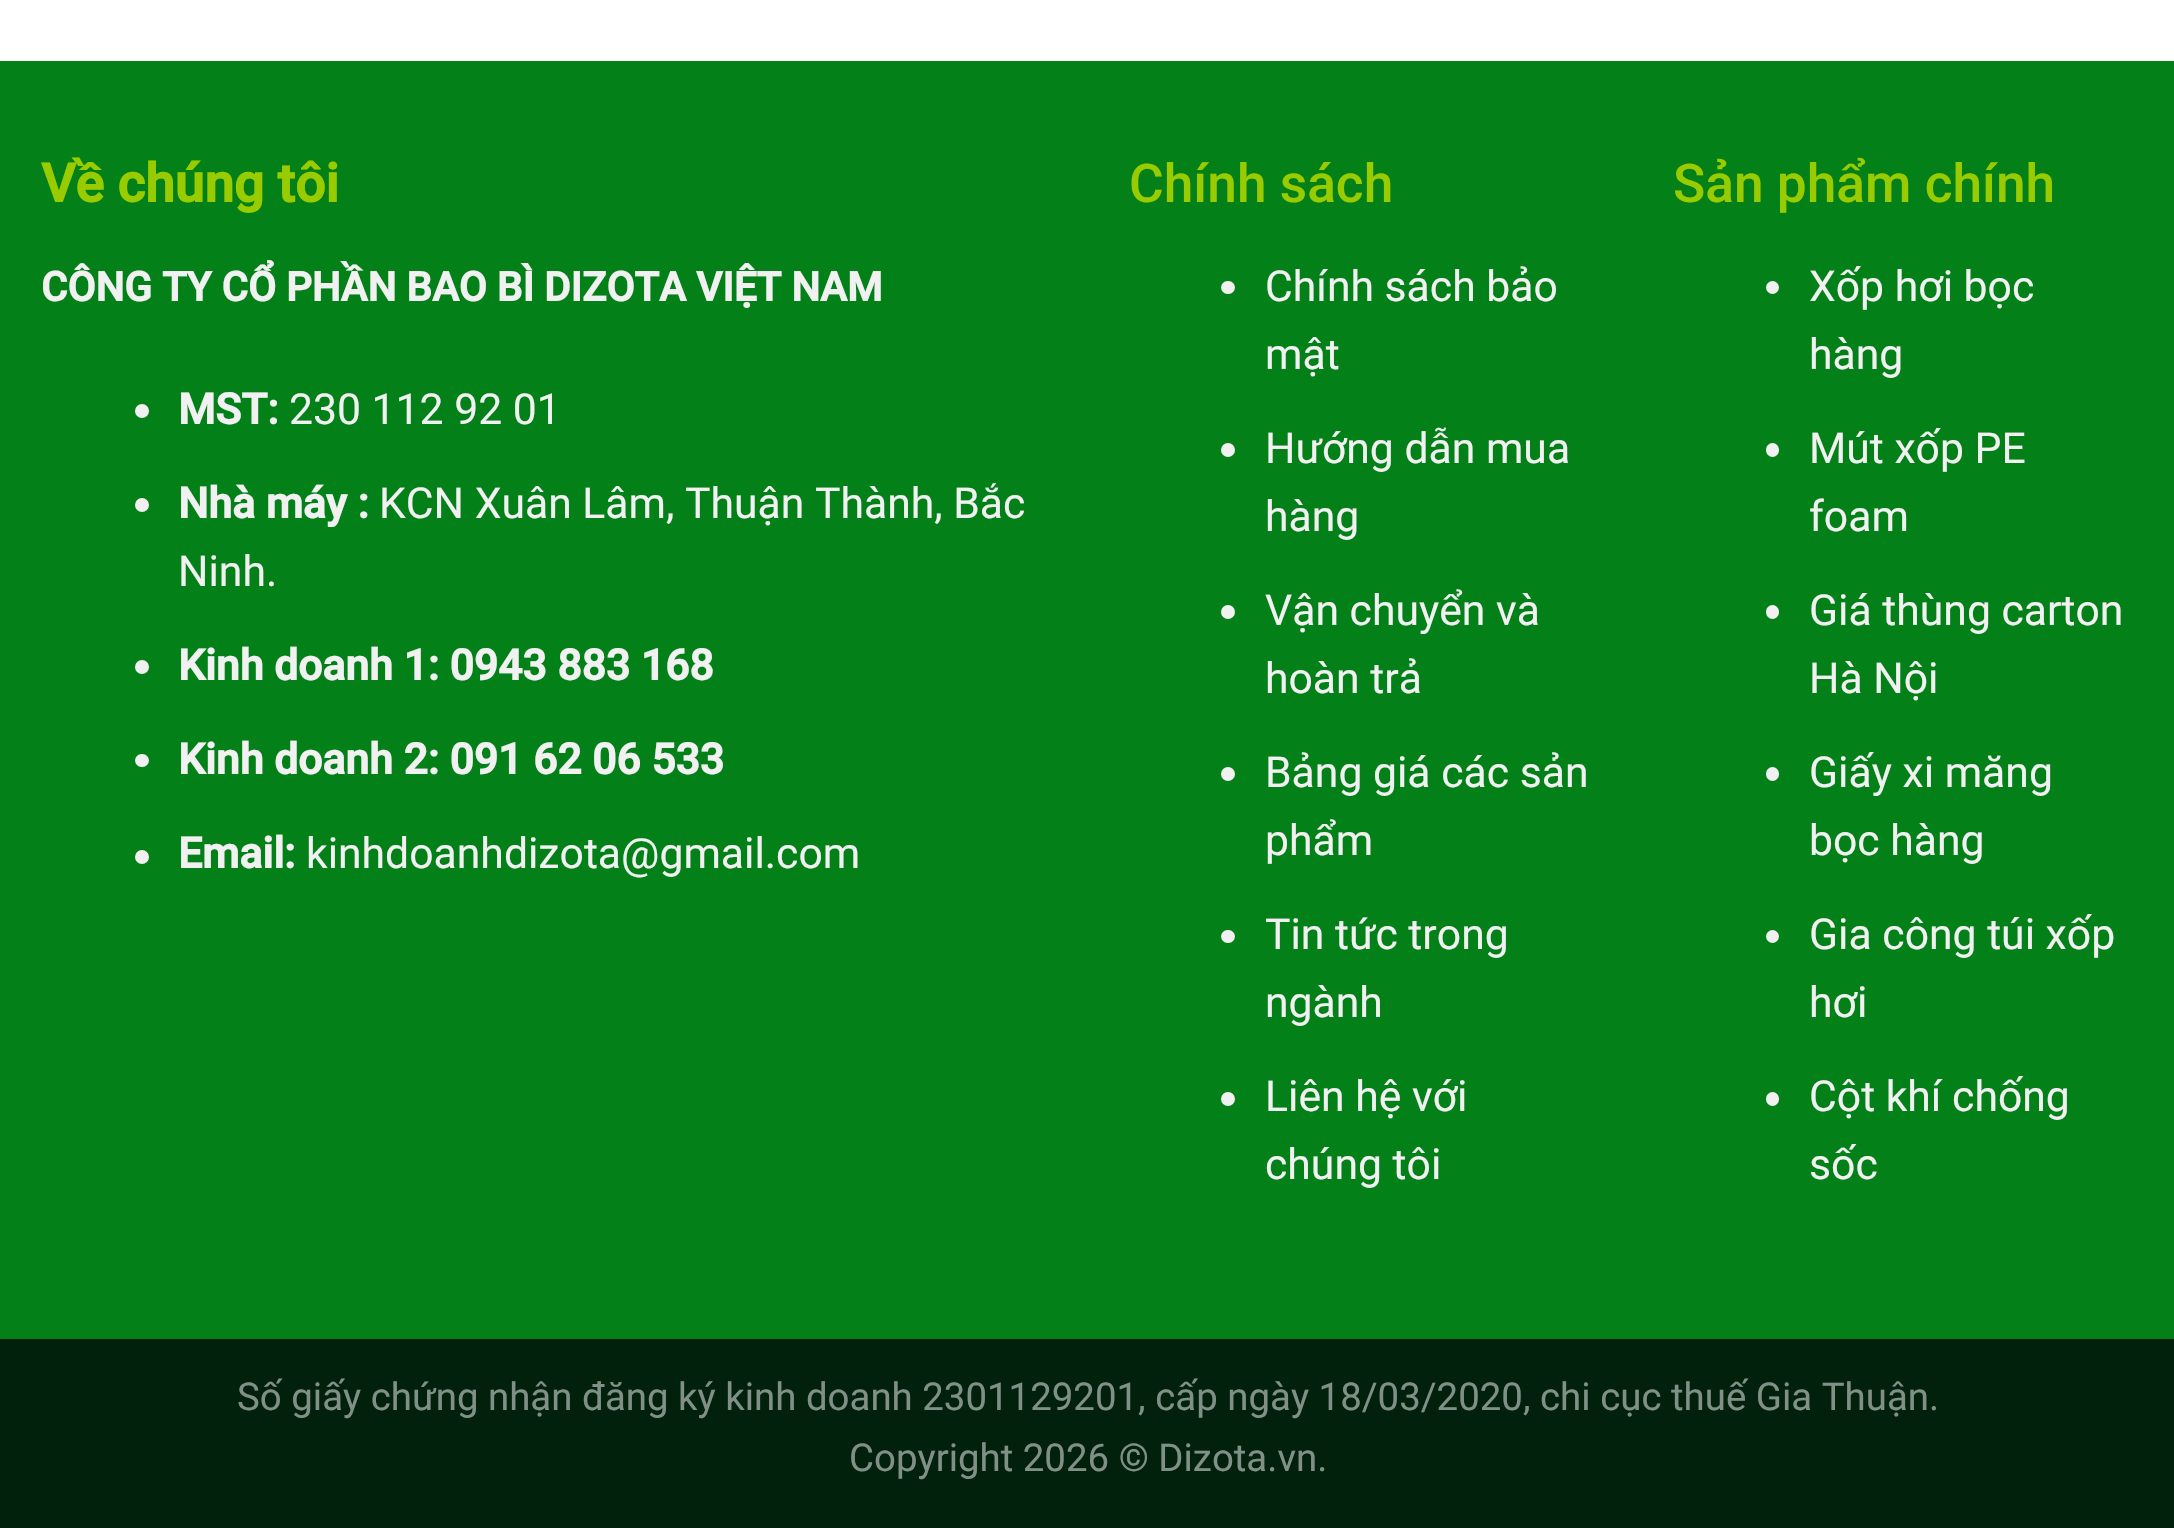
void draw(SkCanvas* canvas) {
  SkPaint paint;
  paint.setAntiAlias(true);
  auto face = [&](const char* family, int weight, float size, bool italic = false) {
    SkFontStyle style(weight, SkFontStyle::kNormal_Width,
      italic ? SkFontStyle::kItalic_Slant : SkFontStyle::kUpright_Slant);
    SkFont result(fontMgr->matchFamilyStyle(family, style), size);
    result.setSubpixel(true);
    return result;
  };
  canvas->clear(0xffffffff);
  paint.setColor(0xff038018);
  canvas->drawRect(SkRect::MakeXYWH(0, 61, 2174, 1278), paint);
  paint.setColor(0xfff1f1f1);
  canvas->drawCircle(142, 411, 7, paint);
  canvas->drawCircle(142, 505, 7, paint);
  canvas->drawCircle(142, 667, 7, paint);
  canvas->drawRoundRect(SkRect::MakeXYWH(135, 754, 14, 13), 6.5f, 6.5f, paint);
  canvas->drawCircle(142, 857, 7, paint);
  canvas->drawRoundRect(SkRect::MakeXYWH(1221, 281, 14, 13), 6.5f, 6.5f, paint);
  canvas->drawCircle(1228, 450, 7, paint);
  canvas->drawCircle(1228, 612, 7, paint);
  canvas->drawCircle(1228, 774, 7, paint);
  canvas->drawRoundRect(SkRect::MakeXYWH(1221, 930, 14, 13), 6.5f, 6.5f, paint);
  canvas->drawCircle(1228, 1099, 7, paint);
  canvas->drawCircle(1772.5f, 287.5f, 6.5f, paint);
  canvas->drawRoundRect(SkRect::MakeXYWH(1766, 443, 13, 14), 6.5f, 6.5f, paint);
  canvas->drawRoundRect(SkRect::MakeXYWH(1766, 605, 13, 14), 6.5f, 6.5f, paint);
  canvas->drawRoundRect(SkRect::MakeXYWH(1766, 767, 13, 14), 6.5f, 6.5f, paint);
  canvas->drawCircle(1772.5f, 936.5f, 6.5f, paint);
  canvas->drawRoundRect(SkRect::MakeXYWH(1766, 1092, 13, 14), 6.5f, 6.5f, paint);
  paint.setColor(0xff01210c);
  canvas->drawRect(SkRect::MakeXYWH(0, 1339, 2174, 189), paint);
  auto f0 = face("Roboto", 700, 53.25f);
  paint.setColor(0xff99cc00);
  canvas->drawString("Về chúng tôi", 41, 202, f0, paint);
  auto f1 = face("Roboto", 700, 40.55f);
  paint.setColor(0xfff1f1f1);
  canvas->drawString("CÔNG TY CỔ PHẦN BAO BÌ DIZOTA VIỆT NAM", 41, 301, f1, paint);
  auto f2 = face("Roboto", 700, 42.7f);
  canvas->drawString("MST:", 178, 424, f2, paint);
  auto f3 = face("Roboto", 400, 42.7f);
  canvas->drawString("230 112 92 01", 289, 424, f3, paint);
  canvas->drawString("Nhà máy :", 178, 518, f2, paint);
  canvas->drawString("KCN Xuân Lâm, Thuận Thành, Bắc", 379, 518, f3, paint);
  canvas->drawString("Ninh.", 178, 586, f3, paint);
  {
    const struct { const char* s; float x, y; } items[] = {
      {"Kinh doanh 1: 0943 883 168", 178, 680},
      {"Kinh doanh 2: 091 62 06 533", 178, 774},
      {"Email:", 178, 868},
    };
    for (auto [s, x, y] : items) {
      canvas->drawString(s, x, y, f2, paint);
    }
  }
  canvas->drawString("kinhdoanhdizota@gmail.com", 306, 868, f3, paint);
  auto f4 = face("Roboto", 500, 53.25f);
  paint.setColor(0xff99cc00);
  canvas->drawString("Chính sách", 1129, 202, f4, paint);
  paint.setColor(0xfff1f1f1);
  {
    const struct { const char* s; float x, y; } items[] = {
      {"Chính sách bảo", 1265, 301},
      {"mật", 1265, 369},
      {"Hướng dẫn mua", 1265, 463},
      {"hàng", 1265, 531},
      {"Vận chuyển và", 1265, 625},
      {"hoàn trả", 1265, 693},
      {"Bảng giá các sản", 1265, 787},
      {"phẩm", 1265, 855},
      {"Tin tức trong", 1265, 949},
      {"ngành", 1265, 1017},
      {"Liên hệ với", 1265, 1111},
      {"chúng tôi", 1265, 1179},
    };
    for (auto [s, x, y] : items) {
      canvas->drawString(s, x, y, f3, paint);
    }
  }
  paint.setColor(0xff99cc00);
  canvas->drawString("Sản phẩm chính", 1673, 202, f4, paint);
  paint.setColor(0xfff1f1f1);
  {
    const struct { const char* s; float x, y; } items[] = {
      {"Xốp hơi bọc", 1809, 301},
      {"hàng", 1809, 369},
      {"Mút xốp PE", 1809, 463},
      {"foam", 1809, 531},
      {"Giá thùng carton", 1809, 625},
      {"Hà Nội", 1809, 693},
      {"Giấy xi măng", 1809, 787},
      {"bọc hàng", 1809, 855},
      {"Gia công túi xốp", 1809, 949},
      {"hơi", 1809, 1017},
      {"Cột khí chống", 1809, 1111},
      {"sốc", 1809, 1179},
    };
    for (auto [s, x, y] : items) {
      canvas->drawString(s, x, y, f3, paint);
    }
  }
  auto f5 = face("Roboto", 400, 38.4f);
  paint.setColor(0xff809086);
  canvas->drawString("Số giấy chứng nhận đăng ký kinh doanh 2301129201, cấp ngày 18/03/2020, chi cục thuế Gia Thuận.", 237, 1410, f5, paint);
  canvas->drawString("Copyright 2026 © Dizota.vn.", 849, 1471, f5, paint);
}
